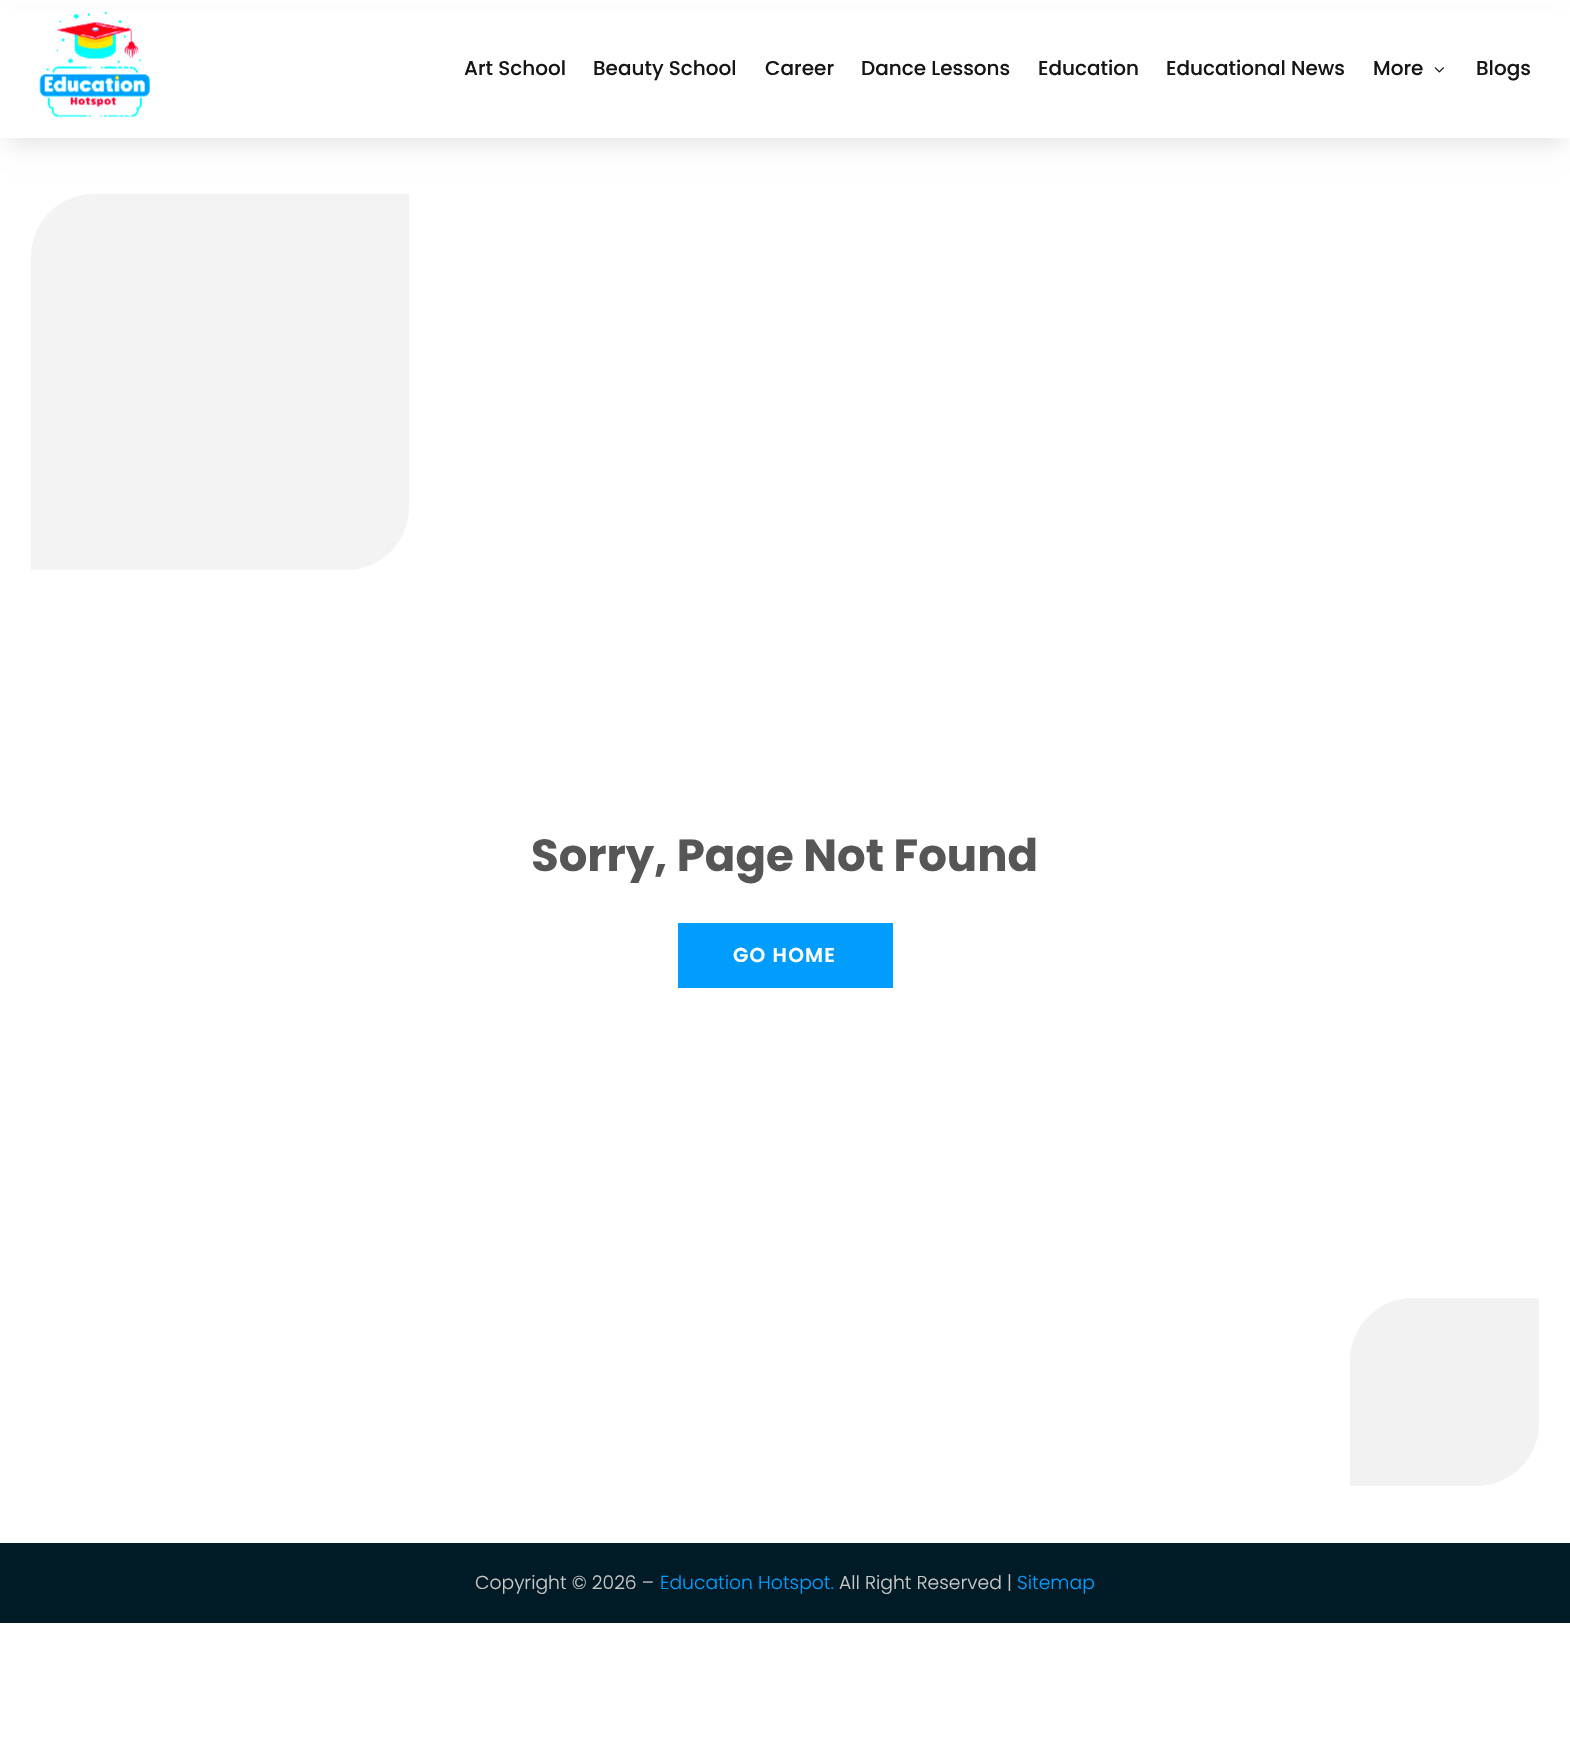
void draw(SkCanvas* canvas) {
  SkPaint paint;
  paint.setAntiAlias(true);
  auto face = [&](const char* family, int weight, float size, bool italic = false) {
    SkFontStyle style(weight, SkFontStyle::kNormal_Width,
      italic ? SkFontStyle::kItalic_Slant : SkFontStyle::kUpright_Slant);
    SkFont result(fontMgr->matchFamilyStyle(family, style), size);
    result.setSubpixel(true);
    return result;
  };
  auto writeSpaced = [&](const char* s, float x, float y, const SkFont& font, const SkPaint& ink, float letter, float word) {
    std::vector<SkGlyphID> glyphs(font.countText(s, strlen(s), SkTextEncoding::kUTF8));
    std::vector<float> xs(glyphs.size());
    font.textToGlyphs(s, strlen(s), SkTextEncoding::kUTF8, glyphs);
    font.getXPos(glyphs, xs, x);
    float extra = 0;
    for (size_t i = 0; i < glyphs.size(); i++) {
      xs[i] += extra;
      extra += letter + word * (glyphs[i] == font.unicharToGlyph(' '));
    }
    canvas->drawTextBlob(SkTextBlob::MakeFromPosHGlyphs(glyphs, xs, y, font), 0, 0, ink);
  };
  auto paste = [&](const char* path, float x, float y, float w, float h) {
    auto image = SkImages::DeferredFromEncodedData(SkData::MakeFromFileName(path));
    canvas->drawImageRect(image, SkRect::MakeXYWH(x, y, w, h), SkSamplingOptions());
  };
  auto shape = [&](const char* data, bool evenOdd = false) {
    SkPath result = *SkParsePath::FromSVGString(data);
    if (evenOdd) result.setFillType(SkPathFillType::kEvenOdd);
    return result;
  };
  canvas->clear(0xffffffff);
  paint.setColor(0x1a000000);
  paint.setMaskFilter(SkMaskFilter::MakeBlur(kNormal_SkBlurStyle, 11));
  canvas->drawRect(SkRect::MakeXYWH(8, 23, 1555, 122), paint);
  paint.setMaskFilter(nullptr);
  paint.setColor(0xffffffff);
  canvas->drawRect(SkRect::MakeXYWH(0, 9, 1570, 129), paint);
  paste("img/1.png", 39, 12, 111, 105);
  paste("img/2.png", 1434, 67, 10, 6);
  paint.setColor(0xfff3f3f3);
  canvas->drawPath(shape("M94 194H409V507C409 542 381 570 346 570H31V257C31 222 59 194 94 194Z"), paint);
  paint.setColor(0xff009dff);
  canvas->drawRect(SkRect::MakeXYWH(678, 923, 215, 65), paint);
  paint.setColor(0xfff2f2f2);
  canvas->drawPath(shape("M1413 1298H1539V1423C1539 1458 1511 1486 1476 1486H1350V1361C1350 1326 1378 1298 1413 1298Z"), paint);
  paint.setColor(0xff001a26);
  canvas->drawRect(SkRect::MakeXYWH(0, 1543, 1570, 80), paint);
  auto f0 = face("Poppins", 500, 20);
  paint.setColor(0xff161616);
  {
    const struct { const char* s; float x, y; } items[] = {
      {"Art School", 464, 75},
      {"Beauty School", 593, 75},
      {"Career", 765, 75},
      {"Dance Lessons", 861, 75},
      {"Education", 1038, 75},
      {"Educational News", 1166, 75},
      {"More", 1373, 75},
      {"Blogs", 1476, 75},
    };
    for (auto [s, x, y] : items) {
      canvas->drawString(s, x, y, f0, paint);
    }
  }
  auto f1 = face("Poppins", 700, 45);
  paint.setColor(0xff565656);
  canvas->drawString("Sorry, Page Not Found", 531, 871, f1, paint);
  auto f2 = face("Poppins", 600, 20);
  paint.setColor(0xffffffff);
  writeSpaced("GO HOME", 733, 962, f2, paint, 1.25f, 0);
  auto f3 = face("Poppins", 300, 18.75f);
  paint.setColor(0xffc9c9c9);
  canvas->drawString("Copyright © 2026 –", 475, 1589, f3, paint);
  paint.setColor(0xff009dff);
  canvas->drawString("Education Hotspot.", 660, 1589, f3, paint);
  paint.setColor(0xffc9c9c9);
  canvas->drawString("All Right Reserved |", 839, 1589, f3, paint);
  paint.setColor(0xff009dff);
  canvas->drawString("Sitemap", 1017, 1589, f3, paint);
}
